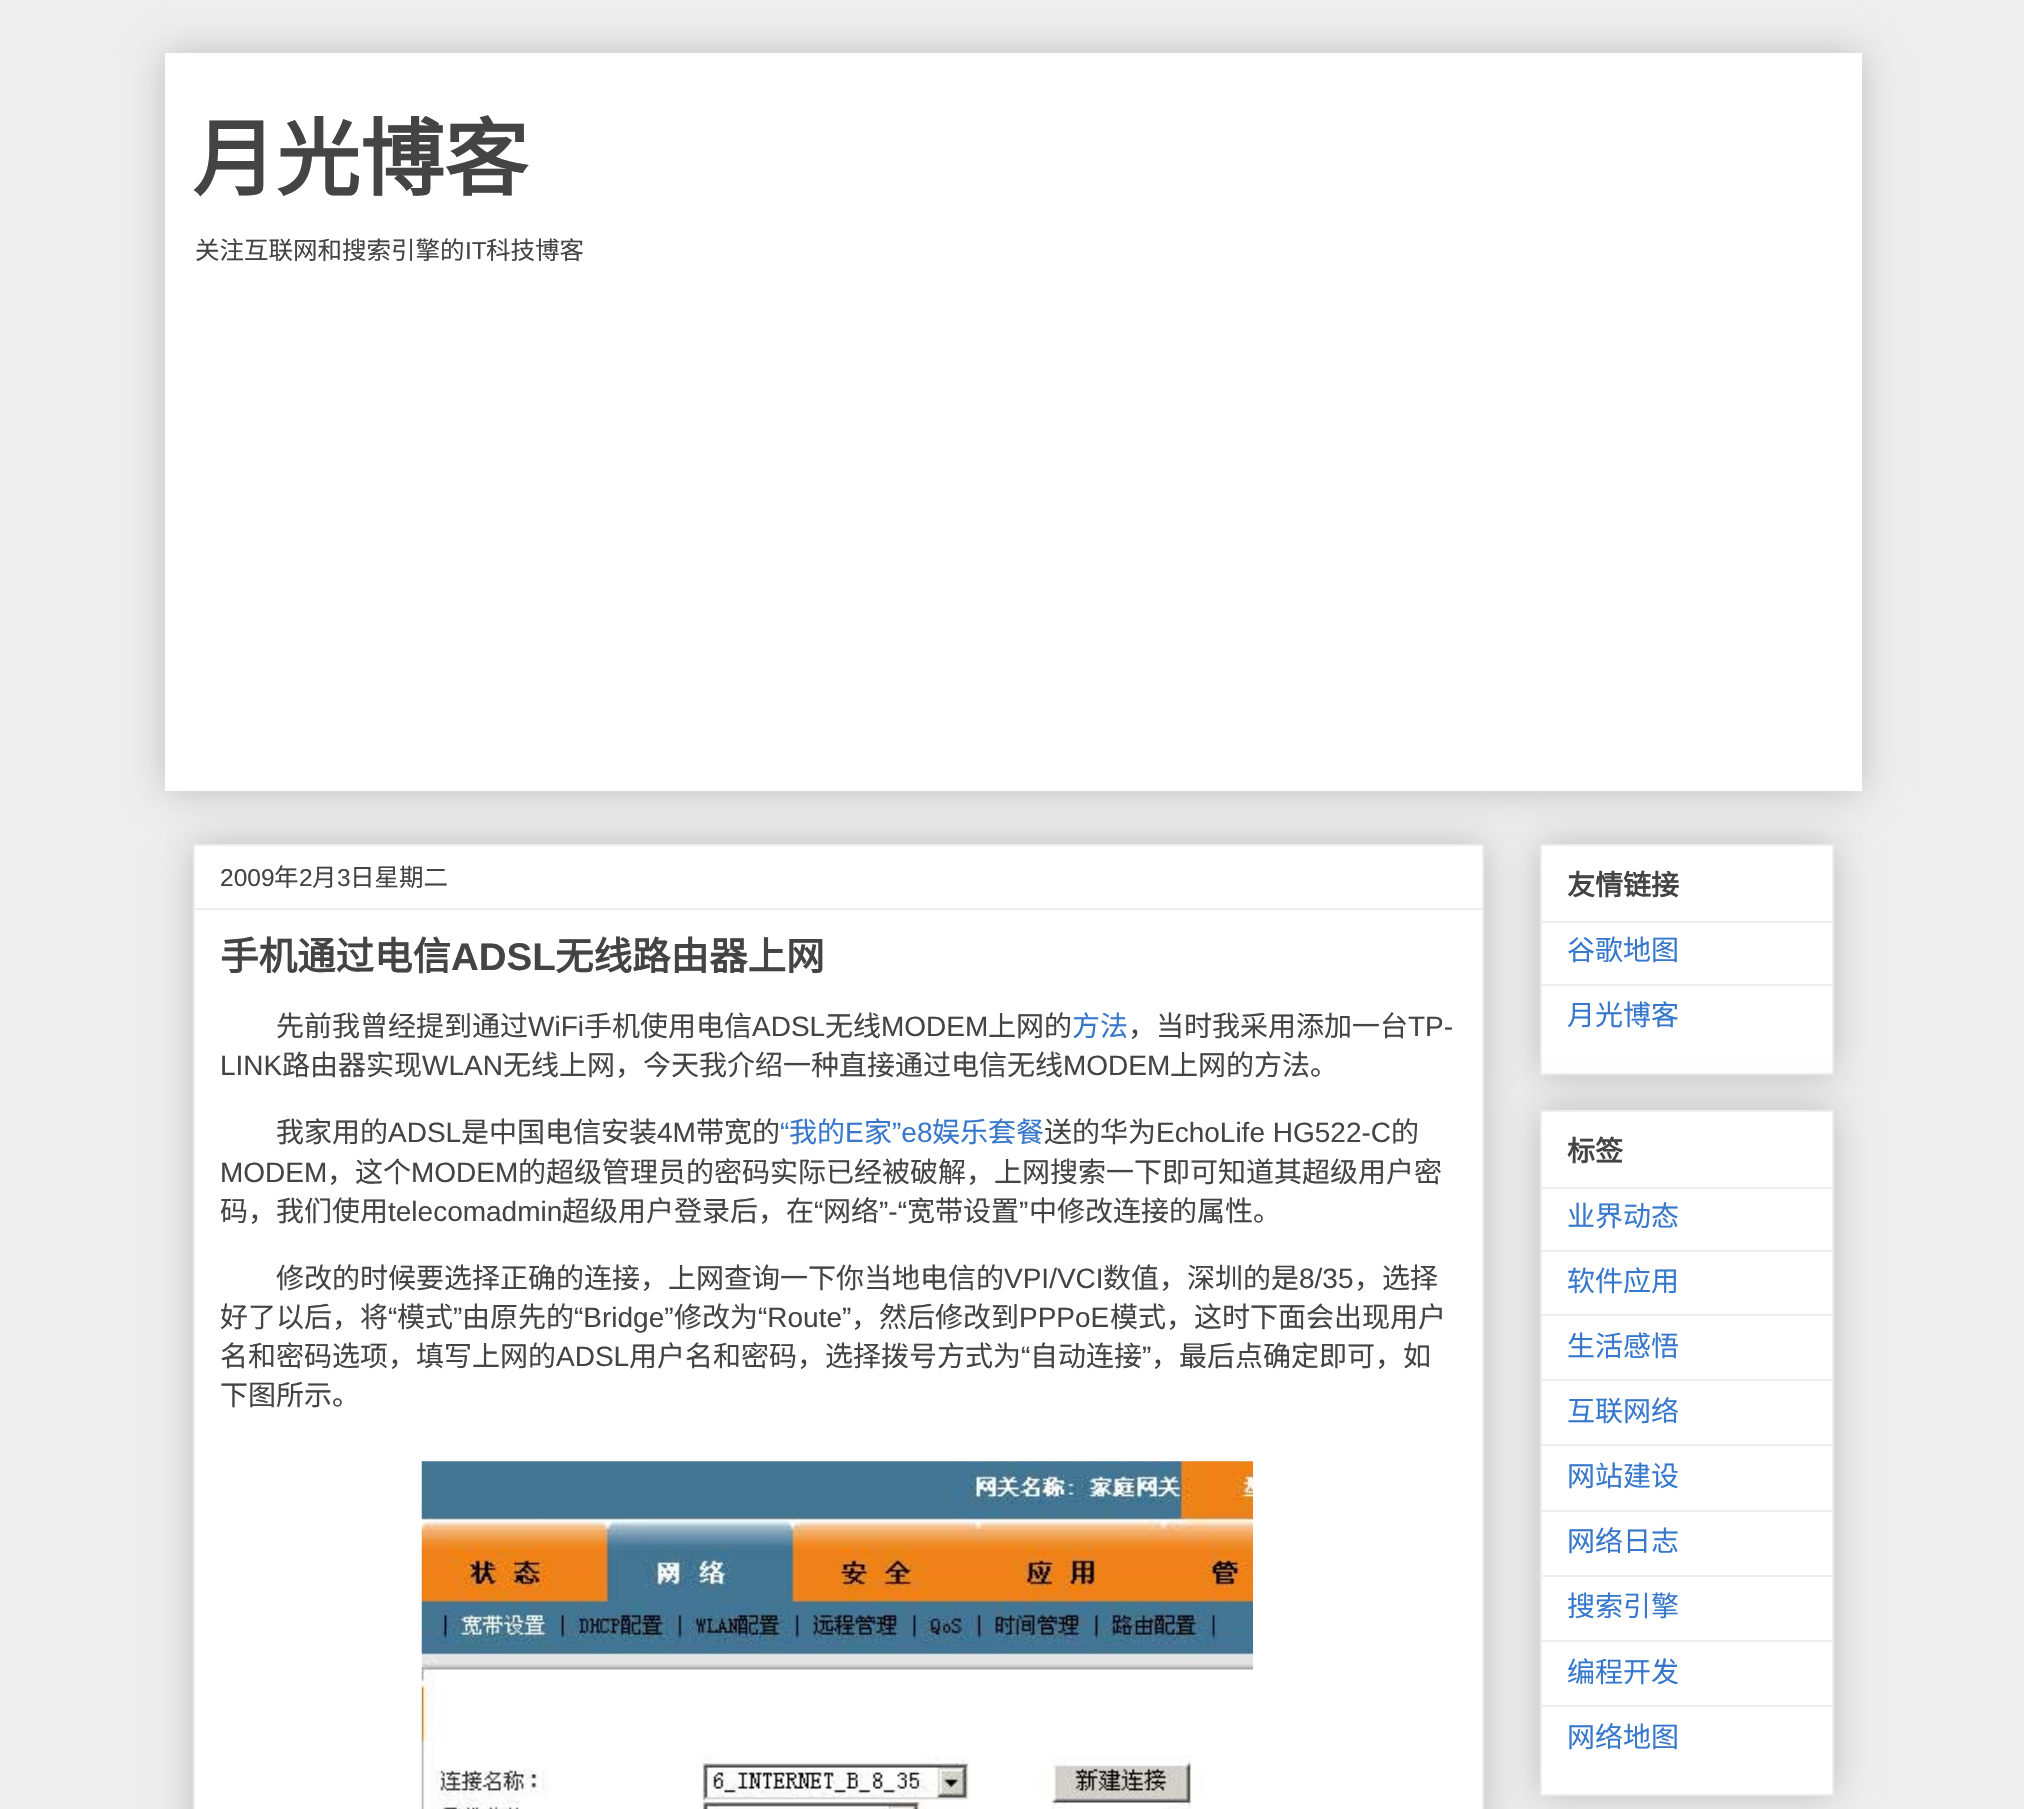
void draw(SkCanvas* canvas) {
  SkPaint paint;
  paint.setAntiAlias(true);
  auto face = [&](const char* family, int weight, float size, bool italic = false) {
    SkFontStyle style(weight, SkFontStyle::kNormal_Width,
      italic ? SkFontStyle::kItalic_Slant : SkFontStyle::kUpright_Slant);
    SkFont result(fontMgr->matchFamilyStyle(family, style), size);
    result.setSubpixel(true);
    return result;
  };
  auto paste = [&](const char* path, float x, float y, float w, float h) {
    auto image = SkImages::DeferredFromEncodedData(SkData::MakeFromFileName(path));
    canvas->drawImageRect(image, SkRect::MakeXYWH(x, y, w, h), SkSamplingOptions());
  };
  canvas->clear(0xffeeeeee);
  paint.setColor(0x33000000);
  paint.setMaskFilter(SkMaskFilter::MakeBlur(kNormal_SkBlurStyle, 17.5f));
  canvas->drawRect(SkRect::MakeXYWH(165, 53, 1697, 738), paint);
  paint.setMaskFilter(nullptr);
  paint.setColor(0xffffffff);
  canvas->drawRect(SkRect::MakeXYWH(165, 53, 1697, 738), paint);
  paint.setColor(0x33000000);
  paint.setMaskFilter(SkMaskFilter::MakeBlur(kNormal_SkBlurStyle, 17.5f));
  canvas->drawRect(SkRect::MakeXYWH(193, 844, 1291, 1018), paint);
  paint.setMaskFilter(nullptr);
  paint.setColor(0xffffffff);
  canvas->drawRect(SkRect::MakeXYWH(194, 845, 1289, 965), paint);
  paint.setStroke(true);
  paint.setStrokeWidth(2);
  paint.setColor(0xffeeeeee);
  canvas->drawRect(SkRect::MakeXYWH(194, 845, 1289, 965), paint);
  paint.setStroke(false);
  canvas->drawRect(SkRect::MakeXYWH(194, 908, 1288, 2), paint);
  paste("img/1.png", 421, 1461, 832, 348);
  paint.setColor(0x33000000);
  paint.setMaskFilter(SkMaskFilter::MakeBlur(kNormal_SkBlurStyle, 17.5f));
  canvas->drawRect(SkRect::MakeXYWH(1540, 844, 294, 231), paint);
  paint.setMaskFilter(nullptr);
  paint.setColor(0xffffffff);
  canvas->drawRect(SkRect::MakeXYWH(1541, 845, 292, 229), paint);
  paint.setStroke(true);
  paint.setColor(0xffeeeeee);
  canvas->drawRect(SkRect::MakeXYWH(1541, 845, 292, 229), paint);
  paint.setStroke(false);
  canvas->drawRect(SkRect::MakeXYWH(1542, 921, 290, 2), paint);
  canvas->drawRect(SkRect::MakeXYWH(1542, 984, 290, 2), paint);
  paint.setColor(0x33000000);
  paint.setMaskFilter(SkMaskFilter::MakeBlur(kNormal_SkBlurStyle, 17.5f));
  canvas->drawRect(SkRect::MakeXYWH(1540, 1110, 294, 686), paint);
  paint.setMaskFilter(nullptr);
  paint.setColor(0xffffffff);
  canvas->drawRect(SkRect::MakeXYWH(1541, 1111, 292, 684), paint);
  paint.setStroke(true);
  paint.setColor(0xffeeeeee);
  canvas->drawRect(SkRect::MakeXYWH(1541, 1111, 292, 684), paint);
  paint.setStroke(false);
  {
    const struct { float x, y, w, h; SkColor color; } items[] = {
      {1542, 1187, 290, 2, 0xffeeeeee},
      {1542, 1250, 290, 2, 0xffeeeeee},
      {1542, 1314, 290, 2, 0xffeeeeee},
      {1542, 1379, 290, 2, 0xffeeeeee},
      {1542, 1444, 290, 2, 0xffeeeeee},
      {1542, 1510, 290, 2, 0xffeeeeee},
      {1542, 1575, 290, 2, 0xffeeeeee},
      {1542, 1640, 290, 2, 0xffeeeeee},
      {1542, 1705, 290, 2, 0xffeeeeee},
    };
    for (auto [x, y, w, h, color] : items) {
      paint.setColor(color);
      canvas->drawRect(SkRect::MakeXYWH(x, y, w, h), paint);
    }
  }
  auto f0 = face("Noto Sans CJK SC", 700, 84);
  paint.setColor(0xff444444);
  canvas->drawString("月光博客", 192, 189, f0, paint);
  auto f1 = face("Noto Sans CJK SC", 400, 24.5f);
  canvas->drawString("关注互联网和搜索引擎的", 195, 259, f1, paint);
  auto f2 = face("Liberation Sans", 400, 24.5f);
  canvas->drawString("IT", 465, 259, f2, paint);
  canvas->drawString("科技博客", 486, 259, f1, paint);
  canvas->drawString("2009", 220, 886, f2, paint);
  canvas->drawString("年", 274, 886, f1, paint);
  canvas->drawString("2", 299, 886, f2, paint);
  canvas->drawString("月", 312, 886, f1, paint);
  canvas->drawString("3", 337, 886, f2, paint);
  canvas->drawString("日星期二", 350, 886, f1, paint);
  auto f3 = face("Noto Sans CJK SC", 700, 38.5f);
  canvas->drawString("手机通过电信", 220, 970, f3, paint);
  auto f4 = face("Liberation Sans", 700, 38.5f);
  canvas->drawString("ADSL", 451, 970, f4, paint);
  canvas->drawString("无线路由器上网", 555, 970, f3, paint);
  auto f5 = face("Noto Sans CJK SC", 400, 28);
  canvas->drawString("先前我曾经提到通过", 276, 1036, f5, paint);
  auto f6 = face("Liberation Sans", 400, 28);
  canvas->drawString("WiFi", 528, 1036, f6, paint);
  canvas->drawString("手机使用电信", 584, 1036, f5, paint);
  canvas->drawString("ADSL", 752, 1036, f6, paint);
  canvas->drawString("无线", 825, 1036, f5, paint);
  canvas->drawString("MODEM", 881, 1036, f6, paint);
  canvas->drawString("上网的", 988, 1036, f5, paint);
  paint.setColor(0xff3778cd);
  canvas->drawString("方法", 1072, 1036, f5, paint);
  paint.setColor(0xff444444);
  canvas->drawString("，当时我采用添加一台", 1128, 1036, f5, paint);
  canvas->drawString("TP-", 1408, 1036, f6, paint);
  canvas->drawString("LINK", 220, 1075, f6, paint);
  canvas->drawString("路由器实现", 282, 1075, f5, paint);
  canvas->drawString("WLAN", 422, 1075, f6, paint);
  canvas->drawString("无线上网，今天我介绍一种直接通过电信无线", 503, 1075, f5, paint);
  canvas->drawString("MODEM", 1063, 1075, f6, paint);
  canvas->drawString("上网的方法。", 1170, 1075, f5, paint);
  canvas->drawString("我家用的", 276, 1142, f5, paint);
  canvas->drawString("ADSL", 388, 1142, f6, paint);
  canvas->drawString("是中国电信安装", 461, 1142, f5, paint);
  canvas->drawString("4M", 657, 1142, f6, paint);
  canvas->drawString("带宽的", 696, 1142, f5, paint);
  paint.setColor(0xff3778cd);
  canvas->drawString("“", 780, 1142, f6, paint);
  canvas->drawString("我的", 789, 1142, f5, paint);
  canvas->drawString("E", 845, 1142, f6, paint);
  canvas->drawString("家", 864, 1142, f5, paint);
  canvas->drawString("”e8", 892, 1142, f6, paint);
  canvas->drawString("娱乐套餐", 932, 1142, f5, paint);
  paint.setColor(0xff444444);
  canvas->drawString("送的华为", 1044, 1142, f5, paint);
  canvas->drawString("EchoLife HG522-C", 1156, 1142, f6, paint);
  canvas->drawString("的", 1391, 1142, f5, paint);
  canvas->drawString("MODEM", 220, 1182, f6, paint);
  canvas->drawString("，这个", 327, 1182, f5, paint);
  canvas->drawString("MODEM", 411, 1182, f6, paint);
  canvas->drawString("的超级管理员的密码实际已经被破解，上网搜索一下即可知道其超级用户密", 518, 1182, f5, paint);
  canvas->drawString("码，我们使用", 220, 1221, f5, paint);
  canvas->drawString("telecomadmin", 388, 1221, f6, paint);
  canvas->drawString("超级用户登录后，在", 562, 1221, f5, paint);
  canvas->drawString("“", 814, 1221, f6, paint);
  canvas->drawString("网络", 823, 1221, f5, paint);
  canvas->drawString("”-“", 879, 1221, f6, paint);
  canvas->drawString("宽带设置", 907, 1221, f5, paint);
  canvas->drawString("”", 1019, 1221, f6, paint);
  canvas->drawString("中修改连接的属性。", 1029, 1221, f5, paint);
  canvas->drawString("修改的时候要选择正确的连接，上网查询一下你当地电信的", 276, 1288, f5, paint);
  canvas->drawString("VPI/VCI", 1004, 1288, f6, paint);
  canvas->drawString("数值，深圳的是", 1103, 1288, f5, paint);
  canvas->drawString("8/35", 1299, 1288, f6, paint);
  canvas->drawString("，选择", 1354, 1288, f5, paint);
  canvas->drawString("好了以后，将", 220, 1327, f5, paint);
  canvas->drawString("“", 388, 1327, f6, paint);
  canvas->drawString("模式", 397, 1327, f5, paint);
  canvas->drawString("”", 453, 1327, f6, paint);
  canvas->drawString("由原先的", 462, 1327, f5, paint);
  canvas->drawString("“Bridge”", 574, 1327, f6, paint);
  canvas->drawString("修改为", 674, 1327, f5, paint);
  canvas->drawString("“Route”", 758, 1327, f6, paint);
  canvas->drawString("，然后修改到", 851, 1327, f5, paint);
  canvas->drawString("PPPoE", 1019, 1327, f6, paint);
  canvas->drawString("模式，这时下面会出现用户", 1110, 1327, f5, paint);
  canvas->drawString("名和密码选项，填写上网的", 220, 1366, f5, paint);
  canvas->drawString("ADSL", 556, 1366, f6, paint);
  canvas->drawString("用户名和密码，选择拨号方式为", 629, 1366, f5, paint);
  canvas->drawString("“", 1021, 1366, f6, paint);
  canvas->drawString("自动连接", 1030, 1366, f5, paint);
  canvas->drawString("”", 1142, 1366, f6, paint);
  canvas->drawString("，最后点确定即可，如", 1151, 1366, f5, paint);
  canvas->drawString("下图所示。", 220, 1405, f5, paint);
  auto f7 = face("Noto Sans CJK SC", 700, 28);
  canvas->drawString("友情链接", 1567, 895, f7, paint);
  paint.setColor(0xff3778cd);
  canvas->drawString("谷歌地图", 1567, 960, f5, paint);
  canvas->drawString("月光博客", 1567, 1025, f5, paint);
  paint.setColor(0xff444444);
  canvas->drawString("标签", 1567, 1161, f7, paint);
  paint.setColor(0xff3778cd);
  {
    const struct { const char* s; float x, y; } items[] = {
      {"业界动态", 1567, 1226},
      {"软件应用", 1567, 1291},
      {"生活感悟", 1567, 1356},
      {"互联网络", 1567, 1421},
      {"网站建设", 1567, 1486},
      {"网络日志", 1567, 1551},
      {"搜索引擎", 1567, 1616},
      {"编程开发", 1567, 1682},
      {"网络地图", 1567, 1747},
    };
    for (auto [s, x, y] : items) {
      canvas->drawString(s, x, y, f5, paint);
    }
  }
}
